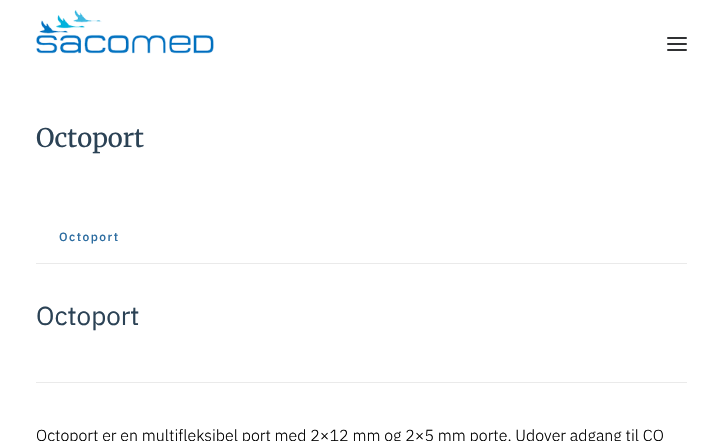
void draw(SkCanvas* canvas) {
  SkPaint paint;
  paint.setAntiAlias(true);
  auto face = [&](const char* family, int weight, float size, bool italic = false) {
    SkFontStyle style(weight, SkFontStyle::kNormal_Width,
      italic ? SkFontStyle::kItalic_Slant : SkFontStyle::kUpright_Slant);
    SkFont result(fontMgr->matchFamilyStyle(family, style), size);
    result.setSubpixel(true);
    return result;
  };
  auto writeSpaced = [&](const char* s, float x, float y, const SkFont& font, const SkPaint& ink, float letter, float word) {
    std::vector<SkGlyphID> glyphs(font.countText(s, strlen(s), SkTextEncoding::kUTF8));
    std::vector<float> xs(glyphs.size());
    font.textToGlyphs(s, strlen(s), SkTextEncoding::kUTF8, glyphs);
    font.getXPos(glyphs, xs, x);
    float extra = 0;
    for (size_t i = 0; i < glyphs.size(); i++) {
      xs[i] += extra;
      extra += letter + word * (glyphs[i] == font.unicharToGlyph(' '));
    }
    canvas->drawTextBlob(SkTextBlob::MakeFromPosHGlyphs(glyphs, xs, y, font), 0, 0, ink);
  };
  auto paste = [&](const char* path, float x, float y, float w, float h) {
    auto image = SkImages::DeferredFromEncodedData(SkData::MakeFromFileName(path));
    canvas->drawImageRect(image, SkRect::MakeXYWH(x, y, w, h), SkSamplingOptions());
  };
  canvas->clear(0xffffffff);
  paste("img/1.png", 36, 10, 178, 44);
  paint.setColor(0xff303133);
  canvas->drawRoundRect(SkRect::MakeXYWH(667, 43, 20, 2), 1, 1, paint);
  canvas->drawRoundRect(SkRect::MakeXYWH(667, 37, 20, 2), 1, 1, paint);
  canvas->drawRoundRect(SkRect::MakeXYWH(667, 49, 20, 2), 1, 1, paint);
  paint.setColor(0xffeaeaea);
  canvas->drawRect(SkRect::MakeXYWH(36, 263, 651, 1), paint);
  canvas->drawRect(SkRect::MakeXYWH(36, 382, 651, 1), paint);
  auto f0 = face("Merriweather", 400, 25.5f);
  paint.setColor(0xff2b4255);
  canvas->drawString("Octoport", 36, 147, f0, paint);
  auto f1 = face("IBM Plex Sans", 500, 12);
  paint.setColor(0xff2c6ca0);
  writeSpaced("Octoport", 59, 241, f1, paint, 1.5f, 0);
  auto f2 = face("IBM Plex Sans", 400, 26);
  paint.setColor(0xff2b4255);
  canvas->drawString("Octoport", 36, 325, f2, paint);
  auto f3 = face("IBM Plex Sans", 300, 16);
  paint.setColor(0xff000000);
  canvas->drawString("Octoport er en multifleksibel port med 2×12 mm og 2×5 mm porte. Udover adgang til CO", 36, 441, f3, paint);
}
